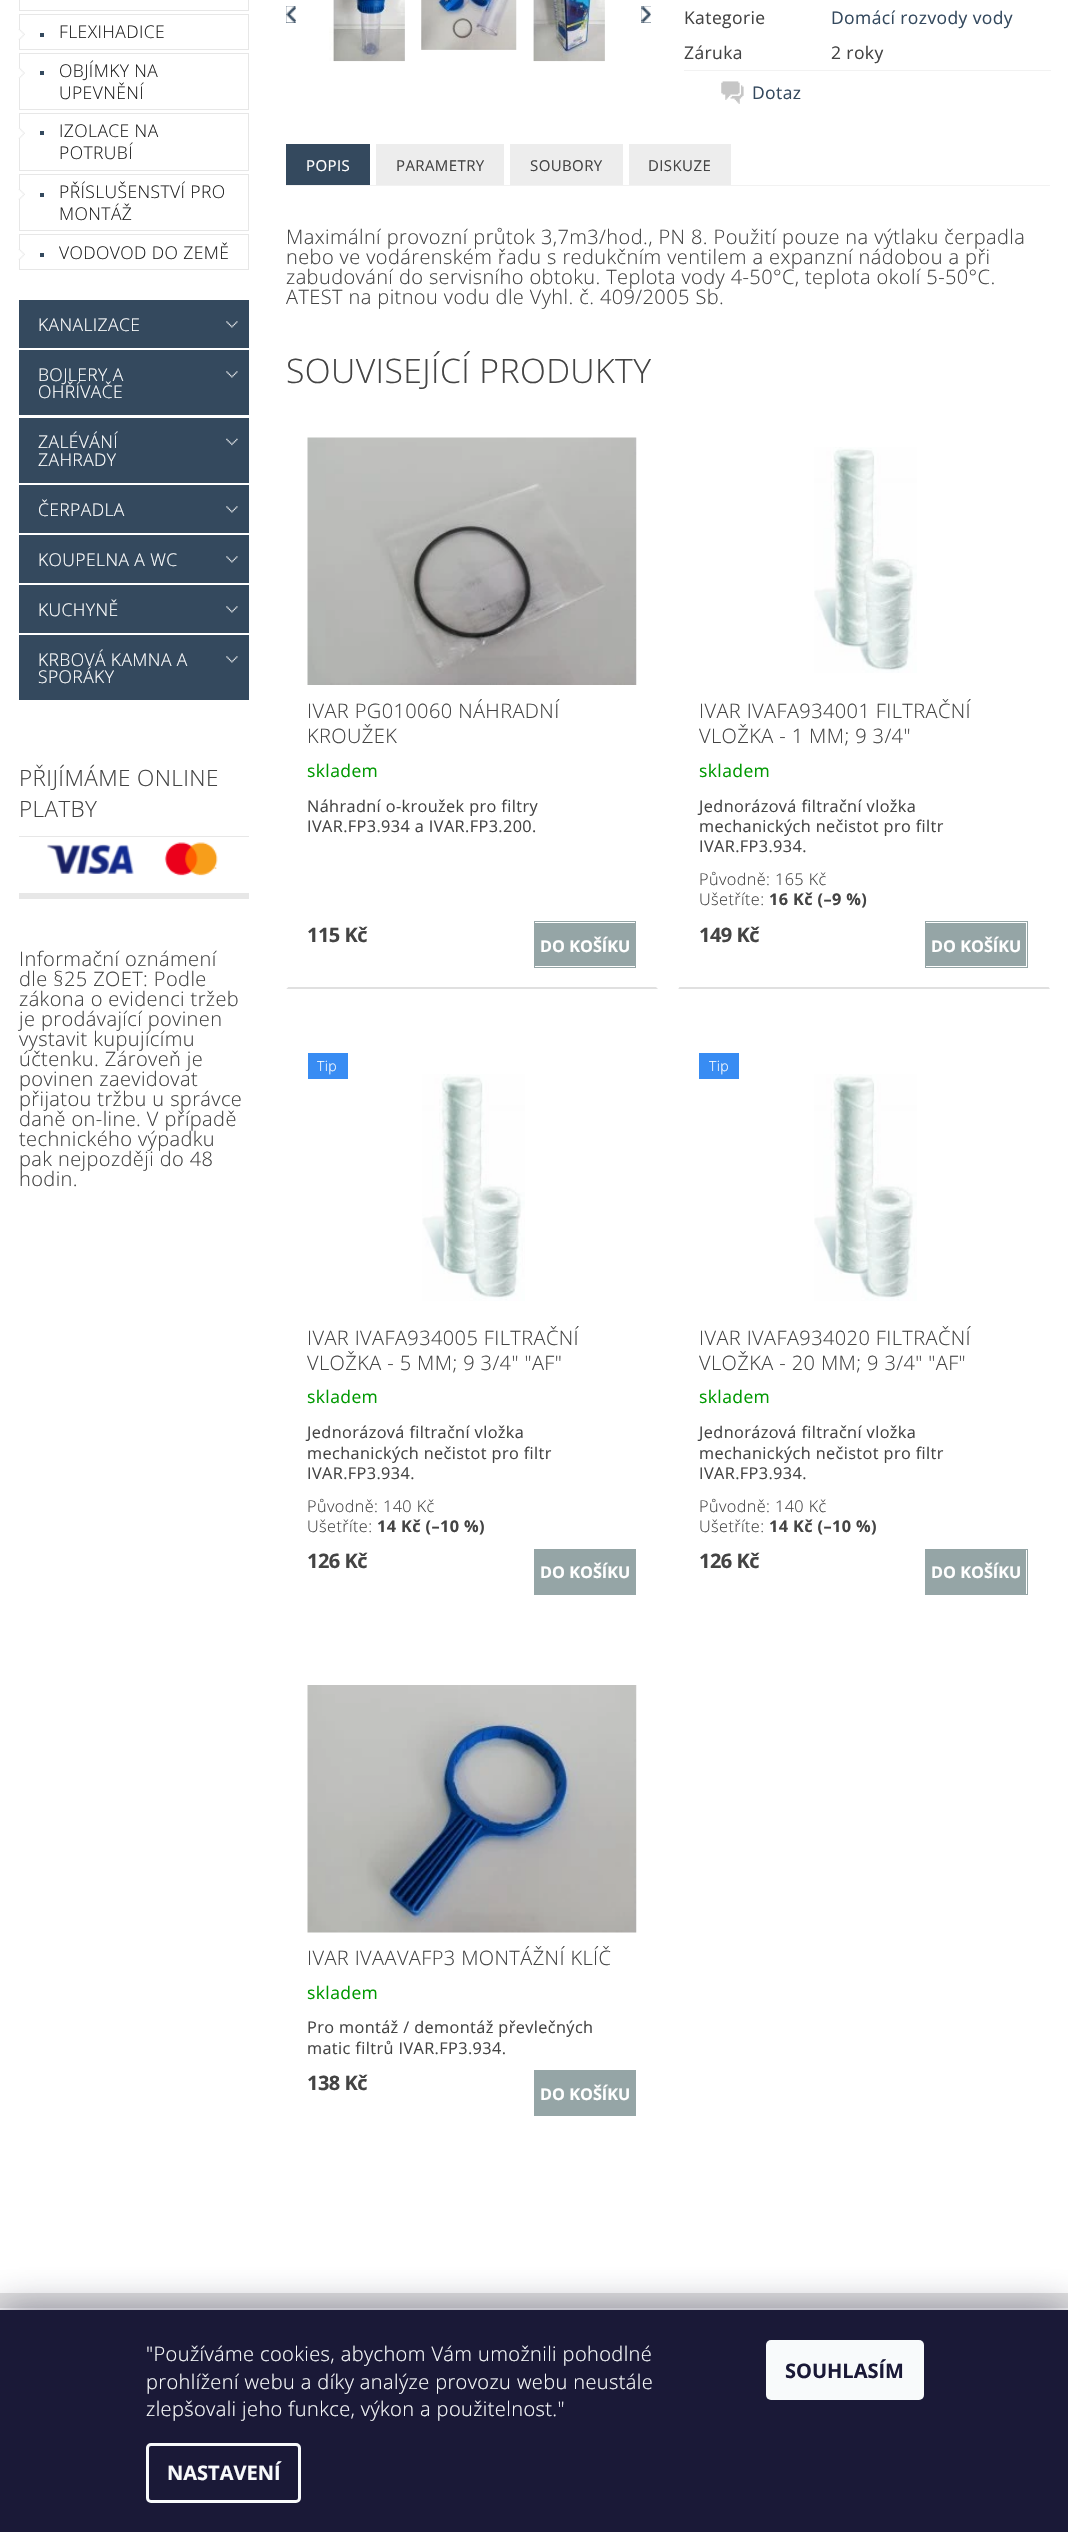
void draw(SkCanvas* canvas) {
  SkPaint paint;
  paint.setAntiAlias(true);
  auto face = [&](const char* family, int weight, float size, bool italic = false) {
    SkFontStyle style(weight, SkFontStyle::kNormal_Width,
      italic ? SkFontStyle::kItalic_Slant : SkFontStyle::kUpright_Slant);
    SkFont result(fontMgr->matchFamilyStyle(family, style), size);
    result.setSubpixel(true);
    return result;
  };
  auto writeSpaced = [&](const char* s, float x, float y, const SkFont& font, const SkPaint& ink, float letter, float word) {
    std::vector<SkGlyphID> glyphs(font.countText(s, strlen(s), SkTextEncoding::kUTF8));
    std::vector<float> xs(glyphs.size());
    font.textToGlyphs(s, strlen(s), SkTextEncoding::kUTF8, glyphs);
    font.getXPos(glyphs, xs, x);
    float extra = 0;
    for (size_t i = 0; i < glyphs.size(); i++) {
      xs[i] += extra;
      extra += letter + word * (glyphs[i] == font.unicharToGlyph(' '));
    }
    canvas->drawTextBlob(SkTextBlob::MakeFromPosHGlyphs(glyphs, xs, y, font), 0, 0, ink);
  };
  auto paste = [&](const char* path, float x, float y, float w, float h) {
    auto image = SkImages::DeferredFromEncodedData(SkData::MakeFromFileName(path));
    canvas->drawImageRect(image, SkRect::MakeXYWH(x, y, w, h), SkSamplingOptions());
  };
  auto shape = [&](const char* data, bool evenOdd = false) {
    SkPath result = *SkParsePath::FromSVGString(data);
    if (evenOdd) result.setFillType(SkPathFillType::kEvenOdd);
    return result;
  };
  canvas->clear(0xffffffff);
  paint.setStroke(true);
  paint.setStrokeWidth(1);
  paint.setColor(0xffe7e7e7);
  canvas->drawRect(SkRect::MakeXYWH(19.5f, -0.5f, 229, 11), paint);
  canvas->drawRect(SkRect::MakeXYWH(19.5f, 14.5f, 229, 35), paint);
  paste("img/1.png", 18, 29, 7, 11);
  paint.setStroke(false);
  paint.setColor(0xff34495e);
  canvas->drawRect(SkRect::MakeXYWH(40, 33, 4, 4), paint);
  paint.setStroke(true);
  paint.setColor(0xffe7e7e7);
  canvas->drawRect(SkRect::MakeXYWH(19.5f, 53.5f, 229, 56), paint);
  paste("img/2.png", 18, 68, 7, 10);
  paint.setStroke(false);
  paint.setColor(0xff34495e);
  canvas->drawRect(SkRect::MakeXYWH(40, 71, 4, 4), paint);
  paint.setStroke(true);
  paint.setColor(0xffe7e7e7);
  canvas->drawRect(SkRect::MakeXYWH(19.5f, 113.5f, 229, 57), paint);
  paste("img/3.png", 18, 128, 7, 11);
  paint.setStroke(false);
  paint.setColor(0xff34495e);
  canvas->drawRect(SkRect::MakeXYWH(40, 131, 4, 4), paint);
  paint.setStroke(true);
  paint.setColor(0xffe7e7e7);
  canvas->drawRect(SkRect::MakeXYWH(19.5f, 174.5f, 229, 56), paint);
  paste("img/4.png", 18, 189, 7, 11);
  paint.setStroke(false);
  paint.setColor(0xff34495e);
  canvas->drawRect(SkRect::MakeXYWH(40, 193, 4, 4), paint);
  paint.setStroke(true);
  paint.setColor(0xffe7e7e7);
  canvas->drawRect(SkRect::MakeXYWH(19.5f, 234.5f, 229, 35), paint);
  paste("img/1.png", 18, 249, 7, 11);
  paint.setStroke(false);
  paint.setColor(0xff34495e);
  canvas->drawRect(SkRect::MakeXYWH(40, 253, 4, 4), paint);
  canvas->drawRect(SkRect::MakeXYWH(19, 300, 230, 48), paint);
  paste("img/5.png", 226, 321, 12, 7);
  canvas->drawRect(SkRect::MakeXYWH(19, 350, 230, 65), paint);
  paste("img/5.png", 226, 371, 12, 7);
  canvas->drawRect(SkRect::MakeXYWH(19, 418, 230, 65), paint);
  paste("img/6.png", 226, 438, 12, 8);
  canvas->drawRect(SkRect::MakeXYWH(19, 485, 230, 48), paint);
  paste("img/5.png", 226, 506, 12, 7);
  canvas->drawRect(SkRect::MakeXYWH(19, 535, 230, 48), paint);
  paste("img/5.png", 226, 556, 12, 7);
  canvas->drawRect(SkRect::MakeXYWH(19, 585, 230, 48), paint);
  paste("img/5.png", 226, 606, 12, 7);
  canvas->drawRect(SkRect::MakeXYWH(19, 635, 230, 65), paint);
  paste("img/5.png", 226, 656, 12, 7);
  paint.setColor(0xffe7e7e7);
  canvas->drawRect(SkRect::MakeXYWH(19, 893, 230, 6), paint);
  canvas->drawRect(SkRect::MakeXYWH(19, 836, 230, 1), paint);
  paste("img/7.png", 47, 842, 171, 34);
  paint.setColor(0xff34495e);
  canvas->drawRect(SkRect::MakeXYWH(286, 6, 10, 17), paint);
  paste("img/8.png", 286, 6, 10, 17);
  paste("img/9.png", 329, 0, 76, 62);
  paste("img/10.png", 421, 0, 96, 50);
  paste("img/11.png", 533, 0, 72, 62);
  canvas->drawRect(SkRect::MakeXYWH(641, 6, 10, 17), paint);
  paste("img/12.png", 641, 6, 10, 17);
  paint.setColor(0xfff2f2f2);
  canvas->drawRect(SkRect::MakeXYWH(684, 70, 367, 1), paint);
  paste("img/13.png", 721, 81, 23, 23);
  {
    const struct { float x, y, w, h; SkColor color; } items[] = {
      {286, 185, 764, 1, 0xfff2f2f2},
      {286, 144, 84, 41, 0xff34495e},
      {376, 144, 128, 41, 0xffededed},
      {510, 144, 113, 41, 0xffededed},
      {629, 144, 102, 41, 0xffededed},
    };
    for (auto [x, y, w, h, color] : items) {
      paint.setColor(color);
      canvas->drawRect(SkRect::MakeXYWH(x, y, w, h), paint);
    }
  }
  paint.setColor(0xffe0e0e0);
  canvas->drawPath(shape("M658 989H286L289 986H655Z"), paint);
  paint.setColor(0xffffffff);
  canvas->drawPath(shape("M286 989V404L289 406V986Z"), paint);
  paste("img/14.png", 307, 437, 330, 248);
  paint.setStroke(true);
  paint.setColor(0xff95a5a6);
  canvas->drawRect(SkRect::MakeXYWH(534.5f, 921.5f, 101, 46), paint);
  paint.setStroke(false);
  canvas->drawRect(SkRect::MakeXYWH(535, 923, 100, 43), paint);
  paint.setColor(0xffffffff);
  canvas->drawRect(SkRect::MakeXYWH(285, 986, 374, 1), paint);
  paint.setColor(0xffe0e0e0);
  canvas->drawPath(shape("M1050 989H678L680 986H1048Z"), paint);
  paint.setColor(0xffffffff);
  canvas->drawPath(shape("M678 989V404L680 406V986Z"), paint);
  paste("img/15.png", 814, 447, 103, 226);
  paint.setStroke(true);
  paint.setColor(0xff95a5a6);
  canvas->drawRect(SkRect::MakeXYWH(925.5f, 921.5f, 102, 46), paint);
  paint.setStroke(false);
  {
    const struct { float x, y, w, h; SkColor color; } items[] = {
      {926, 923, 100, 43, 0xff95a5a6},
      {676, 986, 374, 1, 0xffffffff},
      {308, 1053, 40, 26, 0xff388cf3},
    };
    for (auto [x, y, w, h, color] : items) {
      paint.setColor(color);
      canvas->drawRect(SkRect::MakeXYWH(x, y, w, h), paint);
    }
  }
  paste("img/16.png", 422, 1074, 103, 227);
  paint.setStroke(true);
  paint.setColor(0xff95a5a6);
  canvas->drawRect(SkRect::MakeXYWH(534.5f, 1549.5f, 101, 45), paint);
  paint.setStroke(false);
  canvas->drawRect(SkRect::MakeXYWH(535, 1550, 100, 44), paint);
  paint.setColor(0xff388cf3);
  canvas->drawRect(SkRect::MakeXYWH(699, 1053, 40, 26), paint);
  paste("img/17.png", 814, 1074, 103, 227);
  paint.setStroke(true);
  paint.setColor(0xff95a5a6);
  canvas->drawRect(SkRect::MakeXYWH(925.5f, 1549.5f, 102, 45), paint);
  paint.setStroke(false);
  canvas->drawRect(SkRect::MakeXYWH(926, 1550, 100, 44), paint);
  paste("img/18.png", 307, 1685, 330, 248);
  paint.setStroke(true);
  canvas->drawRect(SkRect::MakeXYWH(534.5f, 2070.5f, 101, 45), paint);
  paint.setStroke(false);
  {
    const struct { float x, y, w, h; SkColor color; } items[] = {
      {535, 2071, 100, 44, 0xff95a5a6},
      {0, 2308, 1068, 2, 0xfff8f8f8},
      {0, 2293, 1068, 15, 0xffe0e0e0},
    };
    for (auto [x, y, w, h, color] : items) {
      paint.setColor(color);
      canvas->drawRect(SkRect::MakeXYWH(x, y, w, h), paint);
    }
  }
  paint.setColor(0x801b1939);
  paint.setMaskFilter(SkMaskFilter::MakeBlur(kNormal_SkBlurStyle, 19));
  canvas->drawRect(SkRect::MakeXYWH(0, 2310, 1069, 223), paint);
  paint.setMaskFilter(nullptr);
  paint.setColor(0xff1a1937);
  canvas->drawRect(SkRect::MakeXYWH(0, 2310, 1068, 222), paint);
  paint.setStroke(true);
  paint.setStrokeWidth(3);
  paint.setColor(0xfff8fafb);
  canvas->drawRoundRect(SkRect::MakeXYWH(147.5f, 2444.5f, 152, 57), 3.5f, 3.5f, paint);
  paint.setStroke(false);
  canvas->drawRoundRect(SkRect::MakeXYWH(766, 2340, 158, 60), 5, 5, paint);
  auto f0 = face("Open Sans", 300, 17.5f);
  paint.setColor(0xff222222);
  {
    const struct { const char* s; float x, y; } items[] = {
      {"FLEXIHADICE", 59, 38},
      {"OBJÍMKY NA", 59, 77},
      {"UPEVNĚNÍ", 59, 99},
      {"IZOLACE NA", 59, 137},
      {"POTRUBÍ", 59, 159},
      {"PŘÍSLUŠENSTVÍ PRO", 59, 198},
      {"MONTÁŽ", 59, 220},
      {"VODOVOD DO ZEMĚ", 59, 259},
    };
    for (auto [s, x, y] : items) {
      writeSpaced(s, x, y, f0, paint, 0.4f, 0);
    }
  }
  paint.setColor(0xffffffff);
  {
    const struct { const char* s; float x, y; } items[] = {
      {"KANALIZACE", 38, 331},
      {"BOJLERY A", 38, 381},
      {"OHŘÍVAČE", 38, 398},
      {"ZALÉVÁNÍ", 38, 448},
      {"ZAHRADY", 38, 466},
      {"ČERPADLA", 38, 516},
      {"KOUPELNA A WC", 38, 566},
      {"KUCHYNĚ", 38, 616},
      {"KRBOVÁ KAMNA A", 38, 666},
      {"SPORÁKY", 38, 683},
    };
    for (auto [s, x, y] : items) {
      writeSpaced(s, x, y, f0, paint, 0.4f, 0);
    }
  }
  auto f1 = face("Open Sans", 300, 22.5f);
  paint.setColor(0xff444444);
  writeSpaced("PŘIJÍMÁME ONLINE", 19, 786, f1, paint, 0.4f, 0);
  writeSpaced("PLATBY", 19, 817, f1, paint, 0.4f, 0);
  auto f2 = face("Open Sans", 300, 20);
  {
    const struct { const char* s; float x, y; } items[] = {
      {"Informační oznámení", 19, 966},
      {"dle §25 ZOET: Podle", 19, 986},
      {"zákona o evidenci tržeb", 19, 1006},
      {"je prodávající povinen", 19, 1026},
      {"vystavit kupujícímu", 19, 1046},
      {"účtenku. Zároveň je", 19, 1066},
      {"povinen zaevidovat", 19, 1086},
      {"přijatou tržbu u správce", 19, 1106},
      {"daně on-line. V případě", 19, 1126},
      {"technického výpadku", 19, 1146},
      {"pak nejpozději do 48", 19, 1166},
      {"hodin.", 19, 1186},
    };
    for (auto [s, x, y] : items) {
      writeSpaced(s, x, y, f2, paint, 0.4f, 0);
    }
  }
  auto f3 = face("Open Sans", 400, 17.5f);
  writeSpaced("Kategorie", 684, 24, f3, paint, 0.4f, 0);
  paint.setColor(0xff34495e);
  writeSpaced("Domácí rozvody vody", 831, 24, f3, paint, 0.4f, 0);
  paint.setColor(0xff444444);
  writeSpaced("Záruka", 684, 59, f3, paint, 0.4f, 0);
  writeSpaced("2 roky", 831, 59, f3, paint, 0.4f, 0);
  paint.setColor(0xff34495e);
  writeSpaced("Dotaz", 752, 99, f3, paint, 0.4f, 0);
  auto f4 = face("Open Sans", 400, 15);
  paint.setColor(0xffffffff);
  writeSpaced("POPIS", 306, 171, f4, paint, 0.4f, 0);
  paint.setColor(0xff444444);
  {
    const struct { const char* s; float x, y; } items[] = {
      {"PARAMETRY", 396, 171},
      {"SOUBORY", 530, 171},
      {"DISKUZE", 648, 171},
    };
    for (auto [s, x, y] : items) {
      writeSpaced(s, x, y, f4, paint, 0.4f, 0);
    }
  }
  {
    const struct { const char* s; float x, y; } items[] = {
      {"Maximální provozní průtok 3,7m3/hod., PN 8. Použití pouze na výtlaku čerpadla", 286, 244},
      {"nebo ve vodárenském řadu s redukčním ventilem a expanzní nádobou a při", 286, 264},
      {"zabudování do servisního obtoku. Teplota vody 4-50°C, teplota okolí 5-50°C.", 286, 284},
      {"ATEST na pitnou vodu dle Vyhl. č. 409/2005 Sb.", 286, 304},
    };
    for (auto [s, x, y] : items) {
      writeSpaced(s, x, y, f2, paint, 0.4f, 0);
    }
  }
  auto f5 = face("Open Sans", 300, 33.75f);
  writeSpaced("SOUVISEJÍCÍ PRODUKTY", 286, 383, f5, paint, 0.4f, 0);
  writeSpaced("IVAR PG010060 NÁHRADNÍ", 307, 718, f2, paint, 0.4f, 0);
  writeSpaced("KROUŽEK", 307, 743, f2, paint, 0.4f, 0);
  paint.setColor(0xff009901);
  writeSpaced("skladem", 307, 777, f3, paint, 0.4f, 0);
  auto f6 = face("Open Sans", 400, 16.25f);
  paint.setColor(0xff444444);
  writeSpaced("Náhradní o-kroužek pro filtry", 307, 812, f6, paint, 0.4f, 0);
  writeSpaced("IVAR.FP3.934 a IVAR.FP3.200.", 307, 832, f6, paint, 0.4f, 0);
  auto f7 = face("Open Sans", 700, 20);
  writeSpaced("115 Kč", 307, 942, f7, paint, -0.5f, 0);
  auto f8 = face("Open Sans", 700, 16.25f);
  paint.setColor(0xffffffff);
  canvas->drawString("DO KOŠÍKU", 540, 952, f8, paint);
  paint.setColor(0xff444444);
  writeSpaced("IVAR IVAFA934001 FILTRAČNÍ", 699, 718, f2, paint, 0.4f, 0);
  writeSpaced("VLOŽKA - 1 ΜM; 9 3/4\"", 699, 743, f2, paint, 0.4f, 0);
  paint.setColor(0xff009901);
  writeSpaced("skladem", 699, 777, f3, paint, 0.4f, 0);
  paint.setColor(0xff444444);
  {
    const struct { const char* s; float x, y; } items[] = {
      {"Jednorázová filtrační vložka", 699, 812},
      {"mechanických nečistot pro filtr", 699, 832},
      {"IVAR.FP3.934.", 699, 852},
    };
    for (auto [s, x, y] : items) {
      writeSpaced(s, x, y, f6, paint, 0.4f, 0);
    }
  }
  auto f9 = face("Open Sans", 300, 16.25f);
  writeSpaced("Původně: 165 Kč", 699, 885, f9, paint, 0.4f, 0);
  writeSpaced("Ušetříte:", 699, 905, f9, paint, 0.4f, 0);
  writeSpaced("16 Kč (–9 %)", 769, 905, f8, paint, 0.4f, 0);
  writeSpaced("149 Kč", 699, 942, f7, paint, -0.5f, 0);
  paint.setColor(0xffffffff);
  canvas->drawString("DO KOŠÍKU", 931, 952, f8, paint);
  auto f10 = face("Open Sans", 300, 14);
  writeSpaced("Tip", 317, 1071, f10, paint, 0.4f, 0);
  paint.setColor(0xff444444);
  writeSpaced("IVAR IVAFA934005 FILTRAČNÍ", 307, 1345, f2, paint, 0.4f, 0);
  writeSpaced("VLOŽKA - 5 ΜM; 9 3/4\" \"AF\"", 307, 1370, f2, paint, 0.4f, 0);
  paint.setColor(0xff009901);
  writeSpaced("skladem", 307, 1403, f3, paint, 0.4f, 0);
  paint.setColor(0xff444444);
  {
    const struct { const char* s; float x, y; } items[] = {
      {"Jednorázová filtrační vložka", 307, 1438},
      {"mechanických nečistot pro filtr", 307, 1459},
      {"IVAR.FP3.934.", 307, 1479},
    };
    for (auto [s, x, y] : items) {
      writeSpaced(s, x, y, f6, paint, 0.4f, 0);
    }
  }
  writeSpaced("Původně: 140 Kč", 307, 1512, f9, paint, 0.4f, 0);
  writeSpaced("Ušetříte:", 307, 1532, f9, paint, 0.4f, 0);
  writeSpaced("14 Kč (–10 %)", 377, 1532, f8, paint, 0.4f, 0);
  writeSpaced("126 Kč", 307, 1568, f7, paint, -0.5f, 0);
  paint.setColor(0xffffffff);
  canvas->drawString("DO KOŠÍKU", 540, 1578, f8, paint);
  writeSpaced("Tip", 709, 1071, f10, paint, 0.4f, 0);
  paint.setColor(0xff444444);
  writeSpaced("IVAR IVAFA934020 FILTRAČNÍ", 699, 1345, f2, paint, 0.4f, 0);
  writeSpaced("VLOŽKA - 20 ΜM; 9 3/4\" \"AF\"", 699, 1370, f2, paint, 0.4f, 0);
  paint.setColor(0xff009901);
  writeSpaced("skladem", 699, 1403, f3, paint, 0.4f, 0);
  paint.setColor(0xff444444);
  {
    const struct { const char* s; float x, y; } items[] = {
      {"Jednorázová filtrační vložka", 699, 1438},
      {"mechanických nečistot pro filtr", 699, 1459},
      {"IVAR.FP3.934.", 699, 1479},
    };
    for (auto [s, x, y] : items) {
      writeSpaced(s, x, y, f6, paint, 0.4f, 0);
    }
  }
  writeSpaced("Původně: 140 Kč", 699, 1512, f9, paint, 0.4f, 0);
  writeSpaced("Ušetříte:", 699, 1532, f9, paint, 0.4f, 0);
  writeSpaced("14 Kč (–10 %)", 769, 1532, f8, paint, 0.4f, 0);
  writeSpaced("126 Kč", 699, 1568, f7, paint, -0.5f, 0);
  paint.setColor(0xffffffff);
  canvas->drawString("DO KOŠÍKU", 931, 1578, f8, paint);
  paint.setColor(0xff444444);
  writeSpaced("IVAR IVAAVAFP3 MONTÁŽNÍ KLÍČ", 307, 1965, f2, paint, 0.4f, 0);
  paint.setColor(0xff009901);
  writeSpaced("skladem", 307, 1999, f3, paint, 0.4f, 0);
  paint.setColor(0xff444444);
  writeSpaced("Pro montáž / demontáž převlečných", 307, 2033, f6, paint, 0.4f, 0);
  writeSpaced("matic filtrů IVAR.FP3.934.", 307, 2054, f6, paint, 0.4f, 0);
  writeSpaced("138 Kč", 307, 2090, f7, paint, -0.5f, 0);
  paint.setColor(0xffffffff);
  canvas->drawString("DO KOŠÍKU", 540, 2100, f8, paint);
  paint.setColor(0xfff8fafb);
  {
    const struct { const char* s; float x, y; } items[] = {
      {"\"Používáme cookies, abychom Vám umožnili pohodlné", 146, 2361},
      {"prohlížení webu a díky analýze provozu webu neustále", 146, 2389},
      {"zlepšovali jeho funkce, výkon a použitelnost.\"", 146, 2416},
    };
    for (auto [s, x, y] : items) {
      writeSpaced(s, x, y, f2, paint, 0.4f, 0);
    }
  }
  canvas->drawString("NASTAVENÍ", 167, 2480, f7, paint);
  paint.setColor(0xff1a1937);
  canvas->drawString("SOUHLASÍM", 785, 2378, f7, paint);
}
